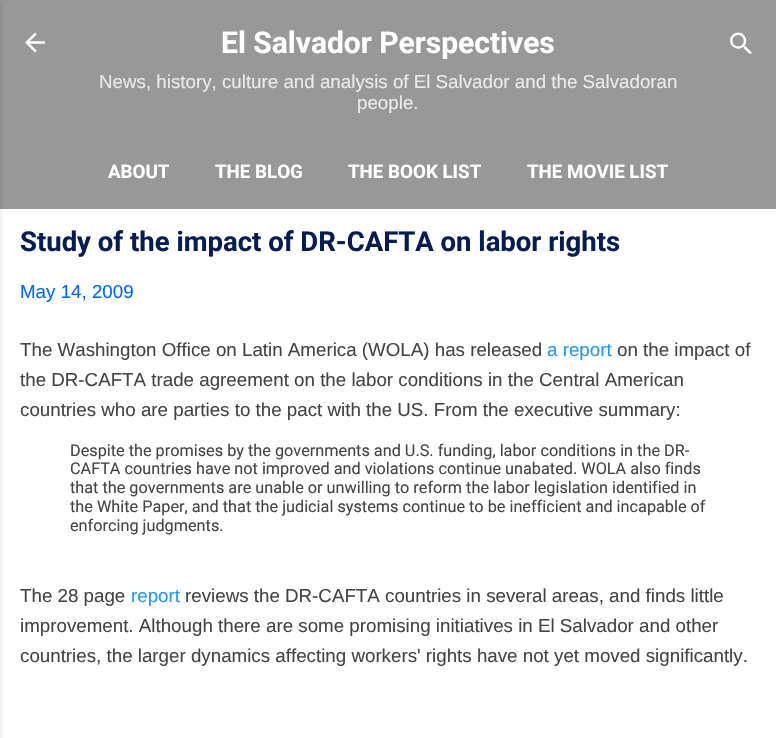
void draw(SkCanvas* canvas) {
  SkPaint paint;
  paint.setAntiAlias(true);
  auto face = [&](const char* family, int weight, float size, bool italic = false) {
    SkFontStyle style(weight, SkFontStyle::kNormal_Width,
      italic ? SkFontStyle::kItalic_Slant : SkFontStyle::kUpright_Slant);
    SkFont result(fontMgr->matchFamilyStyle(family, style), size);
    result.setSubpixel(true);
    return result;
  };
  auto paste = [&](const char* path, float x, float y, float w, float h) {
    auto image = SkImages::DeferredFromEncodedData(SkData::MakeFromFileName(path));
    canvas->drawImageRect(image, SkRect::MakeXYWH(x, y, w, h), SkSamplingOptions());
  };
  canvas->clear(0xff989898);
  paint.setColor(0xffffffff);
  canvas->drawRect(SkRect::MakeXYWH(0, 209, 776, 529), paint);
  paint.setColor(0x1a000000);
  paint.setMaskFilter(SkMaskFilter::MakeBlur(kNormal_SkBlurStyle, 2));
  canvas->drawRect(SkRect::MakeXYWH(-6, 1, 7, 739), paint);
  paint.setMaskFilter(nullptr);
  paste("img/1.png", 25, 32, 20, 21);
  paste("img/2.png", 730, 32, 22, 22);
  auto f0 = face("Roboto", 700, 30);
  paint.setColor(0xffffffff);
  canvas->drawString("El Salvador Perspectives", 221, 53, f0, paint);
  auto f1 = face("Liberation Sans", 400, 18.75f);
  paint.setColor(0xffeaeaea);
  canvas->drawString("News, history, culture and analysis of El Salvador and the Salvadoran", 99, 88, f1, paint);
  canvas->drawString("people.", 357, 109, f1, paint);
  auto f2 = face("Roboto", 700, 18.75f);
  paint.setColor(0xffffffff);
  {
    const struct { const char* s; float x, y; } items[] = {
      {"ABOUT", 108, 178},
      {"THE BLOG", 215, 178},
      {"THE BOOK LIST", 348, 178},
      {"THE MOVIE LIST", 527, 178},
    };
    for (auto [s, x, y] : items) {
      canvas->drawString(s, x, y, f2, paint);
    }
  }
  auto f3 = face("Roboto", 700, 27.5f);
  paint.setColor(0xff071c51);
  canvas->drawString("Study of the impact of DR-CAFTA on labor rights", 20, 251, f3, paint);
  paint.setColor(0xff0068ff);
  canvas->drawString("May 14, 2009", 20, 298, f1, paint);
  paint.setColor(0xff444444);
  canvas->drawString("The Washington Office on Latin America (WOLA) has released", 20, 356, f1, paint);
  paint.setColor(0xff2196f3);
  canvas->drawString("a report", 547, 356, f1, paint);
  paint.setColor(0xff444444);
  {
    const struct { const char* s; float x, y; } items[] = {
      {"on the impact of", 617, 356},
      {"the DR-CAFTA trade agreement on the labor conditions in the Central American", 20, 386},
      {"countries who are parties to the pact with the US. From the executive summary:", 20, 416},
    };
    for (auto [s, x, y] : items) {
      canvas->drawString(s, x, y, f1, paint);
    }
  }
  auto f4 = face("Roboto", 400, 16.25f);
  {
    const struct { const char* s; float x, y; } items[] = {
      {"Despite the promises by the governments and U.S. funding, labor conditions in the DR-", 70, 456},
      {"CAFTA countries have not improved and violations continue unabated. WOLA also finds", 70, 474},
      {"that the governments are unable or unwilling to reform the labor legislation identified in", 70, 493},
      {"the White Paper, and that the judicial systems continue to be inefficient and incapable of", 70, 512},
      {"enforcing judgments.", 70, 531},
    };
    for (auto [s, x, y] : items) {
      canvas->drawString(s, x, y, f4, paint);
    }
  }
  canvas->drawString("The 28 page", 20, 602, f1, paint);
  paint.setColor(0xff2196f3);
  canvas->drawString("report", 131, 602, f1, paint);
  paint.setColor(0xff444444);
  {
    const struct { const char* s; float x, y; } items[] = {
      {"reviews the DR-CAFTA countries in several areas, and finds little", 185, 602},
      {"improvement. Although there are some promising initiatives in El Salvador and other", 20, 632},
      {"countries, the larger dynamics affecting workers' rights have not yet moved significantly.", 20, 662},
    };
    for (auto [s, x, y] : items) {
      canvas->drawString(s, x, y, f1, paint);
    }
  }
}
